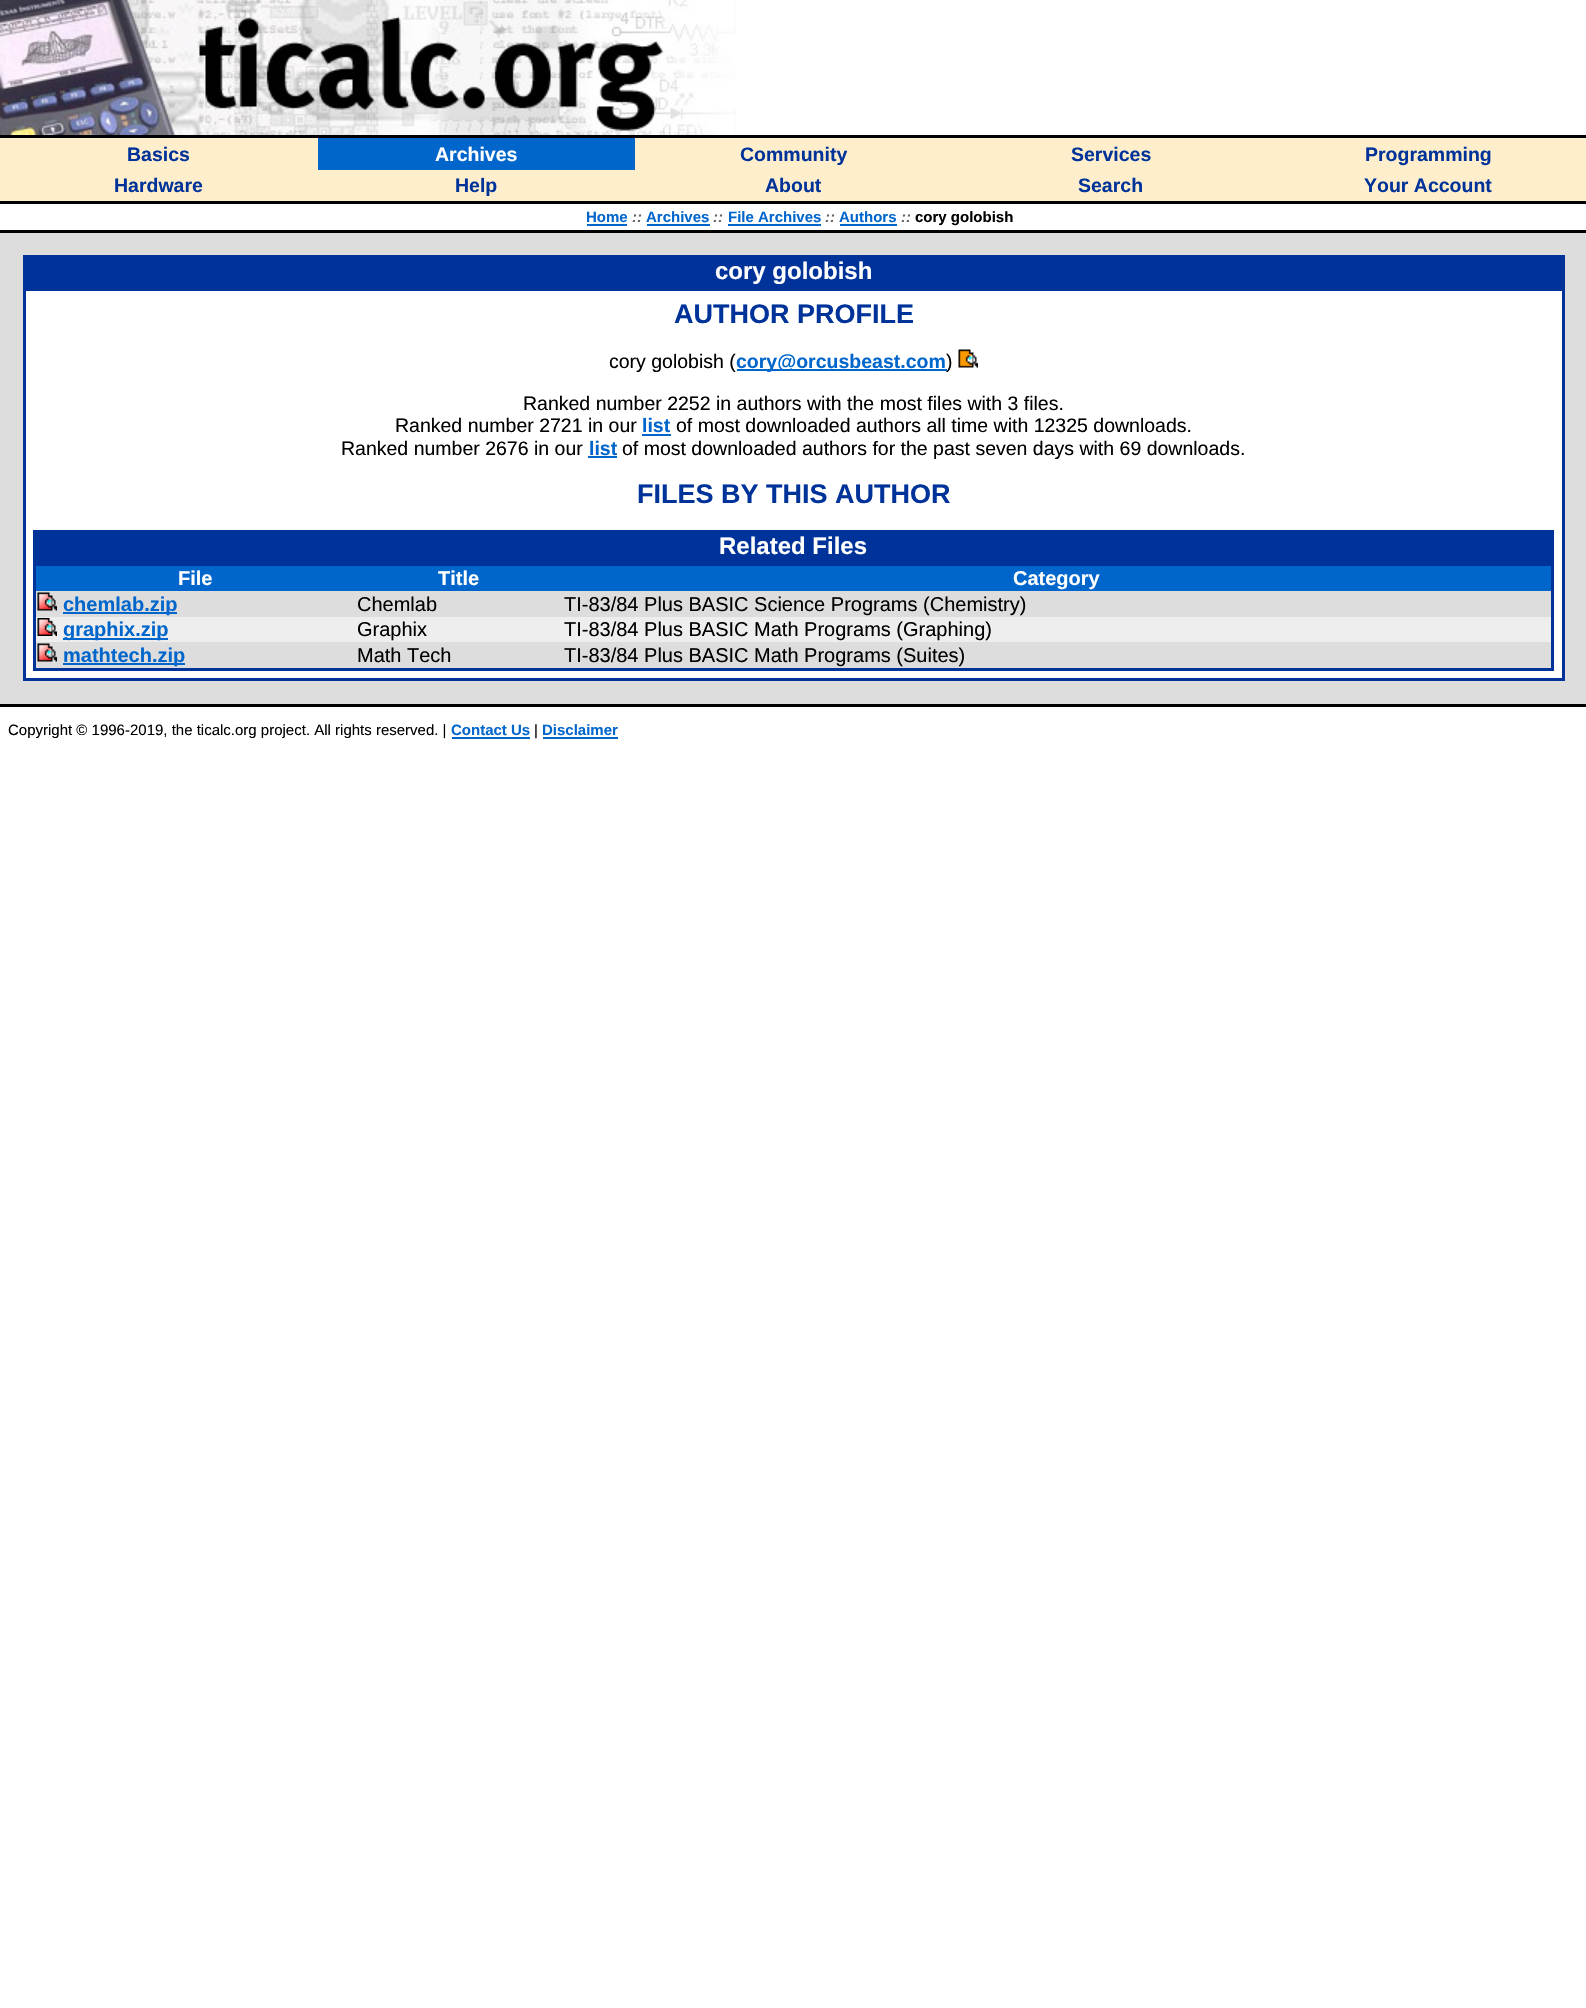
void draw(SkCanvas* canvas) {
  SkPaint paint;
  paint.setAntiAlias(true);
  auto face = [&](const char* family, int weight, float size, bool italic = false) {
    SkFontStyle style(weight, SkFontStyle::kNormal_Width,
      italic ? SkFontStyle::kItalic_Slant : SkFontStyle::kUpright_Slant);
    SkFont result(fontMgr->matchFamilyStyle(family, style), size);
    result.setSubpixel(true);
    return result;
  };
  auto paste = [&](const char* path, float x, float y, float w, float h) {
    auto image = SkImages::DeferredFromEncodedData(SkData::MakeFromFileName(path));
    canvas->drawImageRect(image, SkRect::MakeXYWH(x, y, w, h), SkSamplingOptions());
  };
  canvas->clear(0xffffffff);
  paste("img/1.png", 0, 0, 736, 135);
  {
    const struct { float x, y, w, h; SkColor color; } items[] = {
      {0, 135, 1586, 3, 0xff000000},
      {0, 138, 1586, 63, 0xffffeecc},
      {318, 138, 317, 32, 0xff0066cc},
      {0, 201, 1586, 3, 0xff000000},
      {587, 224, 40, 2, 0xff0066cc},
      {647, 224, 63, 2, 0xff0066cc},
      {728, 224, 93, 2, 0xff0066cc},
      {840, 224, 57, 2, 0xff0066cc},
      {0, 230, 1586, 3, 0xff000000},
      {0, 233, 1586, 471, 0xffdddddd},
      {23, 255, 1542, 426, 0xff003399},
      {26, 291, 1536, 387, 0xffffffff},
      {737, 369, 210, 2, 0xff0066cc},
    };
    for (auto [x, y, w, h, color] : items) {
      paint.setColor(color);
      canvas->drawRect(SkRect::MakeXYWH(x, y, w, h), paint);
    }
  }
  paste("img/2.png", 958, 349, 20, 19);
  {
    const struct { float x, y, w, h; SkColor color; } items[] = {
      {642, 434, 29, 2, 0xff0066cc},
      {588, 456, 29, 2, 0xff0066cc},
      {33, 530, 1521, 141, 0xff003399},
      {36, 566, 1515, 25, 0xff0066cc},
      {36, 591, 1515, 26, 0xffdddddd},
    };
    for (auto [x, y, w, h, color] : items) {
      paint.setColor(color);
      canvas->drawRect(SkRect::MakeXYWH(x, y, w, h), paint);
    }
  }
  paste("img/3.png", 37, 592, 20, 19);
  paint.setColor(0xff0066cc);
  canvas->drawRect(SkRect::MakeXYWH(63, 612, 114, 2), paint);
  paint.setColor(0xffeeeeee);
  canvas->drawRect(SkRect::MakeXYWH(36, 617, 1515, 25), paint);
  paste("img/4.png", 37, 618, 20, 18);
  paint.setColor(0xff0066cc);
  canvas->drawRect(SkRect::MakeXYWH(63, 638, 105, 2), paint);
  paint.setColor(0xffdddddd);
  canvas->drawRect(SkRect::MakeXYWH(36, 642, 1515, 26), paint);
  paste("img/3.png", 37, 643, 20, 19);
  {
    const struct { float x, y, w, h; SkColor color; } items[] = {
      {63, 663, 122, 2, 0xff0066cc},
      {0, 704, 1586, 3, 0xff000000},
      {452, 737, 78, 2, 0xff0066cc},
      {543, 737, 75, 2, 0xff0066cc},
    };
    for (auto [x, y, w, h, color] : items) {
      paint.setColor(color);
      canvas->drawRect(SkRect::MakeXYWH(x, y, w, h), paint);
    }
  }
  auto f0 = face("Liberation Sans", 700, 19.5f);
  paint.setColor(0xff003399);
  canvas->drawString("Basics", 127, 161, f0, paint);
  paint.setColor(0xffffffff);
  canvas->drawString("Archives", 435, 161, f0, paint);
  paint.setColor(0xff003399);
  {
    const struct { const char* s; float x, y; } items[] = {
      {"Community", 740, 161},
      {"Services", 1071, 161},
      {"Programming", 1365, 161},
      {"Hardware", 114, 192},
      {"Help", 455, 192},
      {"About", 765, 192},
      {"Search", 1078, 192},
      {"Your Account", 1364, 192},
    };
    for (auto [s, x, y] : items) {
      canvas->drawString(s, x, y, f0, paint);
    }
  }
  auto f1 = face("Liberation Sans", 700, 15);
  paint.setColor(0xff0066cc);
  canvas->drawString("Home", 586, 222, f1, paint);
  auto f2 = face("Liberation Sans", 700, 15, true);
  paint.setColor(0xff666666);
  canvas->drawString("::", 632, 222, f2, paint);
  paint.setColor(0xff0066cc);
  canvas->drawString("Archives", 646, 222, f1, paint);
  paint.setColor(0xff666666);
  canvas->drawString("::", 713, 222, f2, paint);
  paint.setColor(0xff0066cc);
  canvas->drawString("File Archives", 728, 222, f1, paint);
  paint.setColor(0xff666666);
  canvas->drawString("::", 825, 222, f2, paint);
  paint.setColor(0xff0066cc);
  canvas->drawString("Authors", 839, 222, f1, paint);
  paint.setColor(0xff666666);
  canvas->drawString("::", 901, 222, f2, paint);
  paint.setColor(0xff000000);
  canvas->drawString("cory golobish", 915, 222, f1, paint);
  auto f3 = face("Liberation Sans", 700, 24);
  paint.setColor(0xffffffff);
  canvas->drawString("cory golobish", 715, 279, f3, paint);
  auto f4 = face("Liberation Sans", 700, 27);
  paint.setColor(0xff003399);
  canvas->drawString("AUTHOR PROFILE", 674, 323, f4, paint);
  auto f5 = face("Liberation Sans", 400, 19.5f);
  paint.setColor(0xff000000);
  canvas->drawString("cory golobish (", 609, 368, f5, paint);
  paint.setColor(0xff0066cc);
  canvas->drawString("cory@orcusbeast.com", 736, 368, f0, paint);
  paint.setColor(0xff000000);
  {
    const struct { const char* s; float x, y; } items[] = {
      {")", 946, 368},
      {"Ranked number 2252 in authors with the most files with 3 files.", 523, 410},
      {"Ranked number 2721 in our", 395, 432},
    };
    for (auto [s, x, y] : items) {
      canvas->drawString(s, x, y, f5, paint);
    }
  }
  paint.setColor(0xff0066cc);
  canvas->drawString("list", 642, 432, f0, paint);
  paint.setColor(0xff000000);
  canvas->drawString("of most downloaded authors all time with 12325 downloads.", 676, 432, f5, paint);
  canvas->drawString("Ranked number 2676 in our", 341, 455, f5, paint);
  paint.setColor(0xff0066cc);
  canvas->drawString("list", 589, 455, f0, paint);
  paint.setColor(0xff000000);
  canvas->drawString("of most downloaded authors for the past seven days with 69 downloads.", 622, 455, f5, paint);
  paint.setColor(0xff003399);
  canvas->drawString("FILES BY THIS AUTHOR", 637, 503, f4, paint);
  paint.setColor(0xffffffff);
  canvas->drawString("Related Files", 719, 554, f3, paint);
  auto f6 = face("Liberation Sans", 700, 20);
  {
    const struct { const char* s; float x, y; } items[] = {
      {"File", 178, 585},
      {"Title", 438, 585},
      {"Category", 1013, 585},
    };
    for (auto [s, x, y] : items) {
      canvas->drawString(s, x, y, f6, paint);
    }
  }
  paint.setColor(0xff0066cc);
  canvas->drawString("chemlab.zip", 63, 611, f6, paint);
  auto f7 = face("Liberation Sans", 400, 20);
  paint.setColor(0xff000000);
  canvas->drawString("Chemlab", 357, 611, f7, paint);
  canvas->drawString("TI-83/84 Plus BASIC Science Programs (Chemistry)", 564, 611, f7, paint);
  paint.setColor(0xff0066cc);
  canvas->drawString("graphix.zip", 63, 636, f6, paint);
  paint.setColor(0xff000000);
  canvas->drawString("Graphix", 357, 636, f7, paint);
  canvas->drawString("TI-83/84 Plus BASIC Math Programs (Graphing)", 564, 636, f7, paint);
  paint.setColor(0xff0066cc);
  canvas->drawString("mathtech.zip", 63, 662, f6, paint);
  paint.setColor(0xff000000);
  canvas->drawString("Math Tech", 357, 662, f7, paint);
  canvas->drawString("TI-83/84 Plus BASIC Math Programs (Suites)", 564, 662, f7, paint);
  auto f8 = face("Liberation Sans", 400, 15);
  canvas->drawString("Copyright © 1996-2019, the ticalc.org project. All rights reserved. |", 8, 735, f8, paint);
  paint.setColor(0xff0066cc);
  canvas->drawString("Contact Us", 451, 735, f1, paint);
  paint.setColor(0xff000000);
  canvas->drawString("|", 534, 735, f8, paint);
  paint.setColor(0xff0066cc);
  canvas->drawString("Disclaimer", 542, 735, f1, paint);
}
